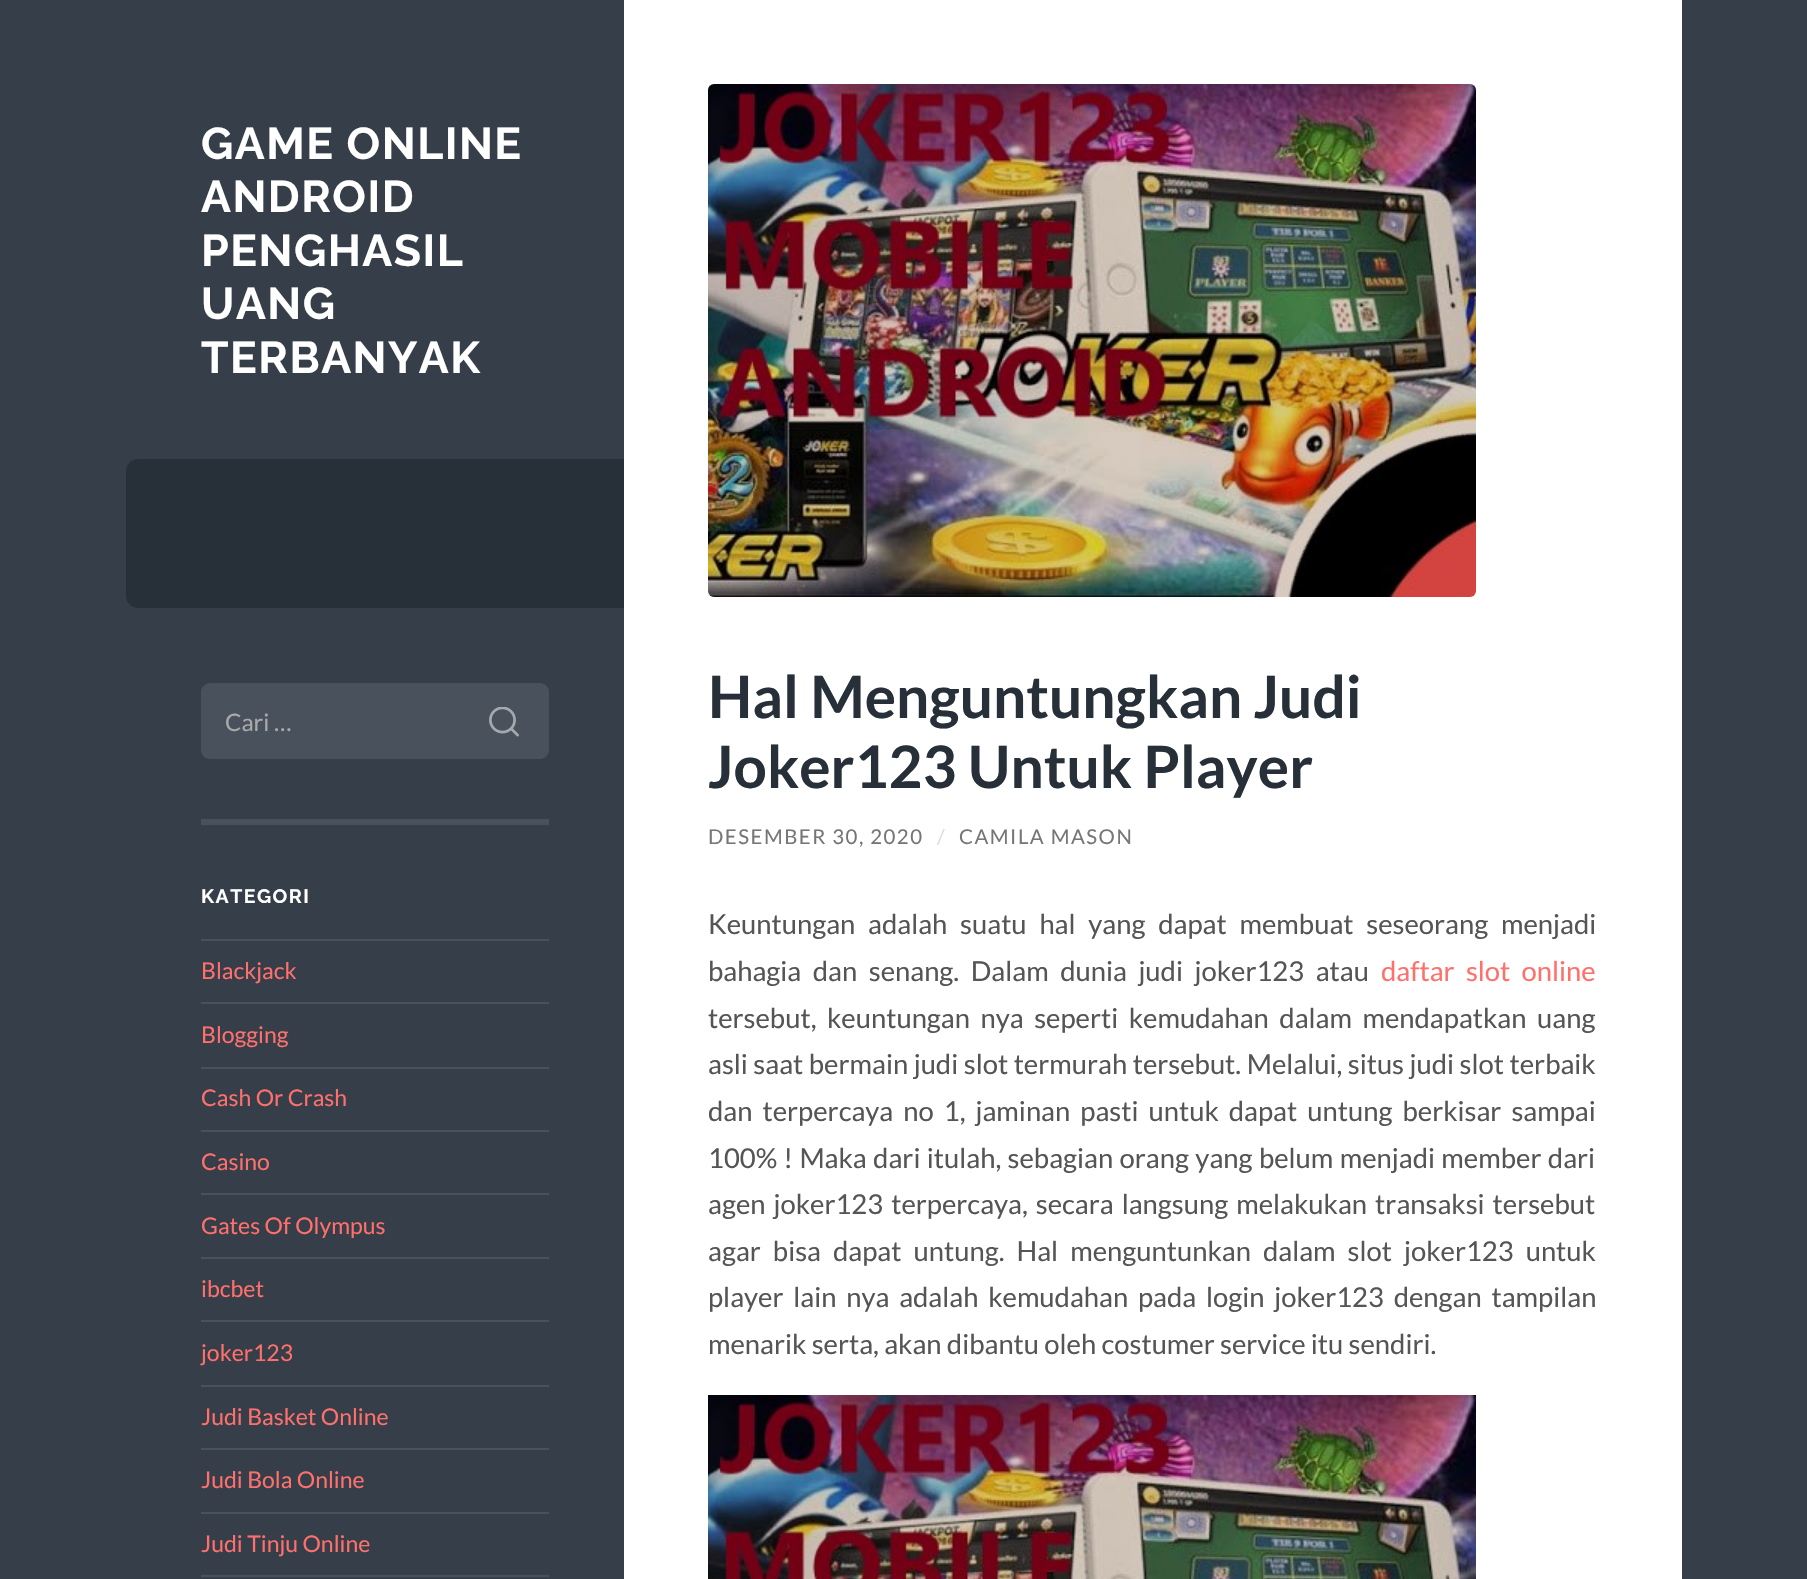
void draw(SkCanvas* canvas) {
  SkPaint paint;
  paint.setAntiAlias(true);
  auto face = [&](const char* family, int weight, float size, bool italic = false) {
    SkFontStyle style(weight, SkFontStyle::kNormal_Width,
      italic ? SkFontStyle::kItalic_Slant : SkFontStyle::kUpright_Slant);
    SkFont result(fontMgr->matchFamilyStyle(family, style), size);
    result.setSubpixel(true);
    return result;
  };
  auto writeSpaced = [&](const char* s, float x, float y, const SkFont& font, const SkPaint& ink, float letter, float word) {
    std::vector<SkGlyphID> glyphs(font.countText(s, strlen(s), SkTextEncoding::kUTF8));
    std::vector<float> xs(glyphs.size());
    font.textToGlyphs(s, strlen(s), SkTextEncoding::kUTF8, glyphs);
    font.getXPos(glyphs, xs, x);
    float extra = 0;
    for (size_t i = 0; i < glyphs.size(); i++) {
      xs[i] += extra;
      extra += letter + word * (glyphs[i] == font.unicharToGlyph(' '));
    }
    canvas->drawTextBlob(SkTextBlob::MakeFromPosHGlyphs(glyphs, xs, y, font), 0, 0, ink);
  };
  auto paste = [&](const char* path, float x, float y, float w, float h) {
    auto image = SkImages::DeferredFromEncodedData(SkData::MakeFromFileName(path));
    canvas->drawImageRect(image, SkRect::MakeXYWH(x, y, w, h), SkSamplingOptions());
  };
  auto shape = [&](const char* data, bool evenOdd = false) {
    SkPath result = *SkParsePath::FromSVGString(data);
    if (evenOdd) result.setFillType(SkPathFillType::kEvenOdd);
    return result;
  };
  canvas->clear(0xff353e49);
  paint.setColor(0xff272f38);
  canvas->drawPath(shape("M138 459H624V608H138C131.5 608 126 602.5 126 596V471C126 464.5 131.5 459 138 459Z"), paint);
  paint.setColor(0xff49515b);
  canvas->drawRect(SkRect::MakeXYWH(201, 819, 348, 6), paint);
  paint.setColor(0xff48515c);
  canvas->drawRoundRect(SkRect::MakeXYWH(201, 683, 348, 76), 9, 9, paint);
  paste("img/1.png", 489, 707, 30, 30);
  {
    const struct { float x, y, w, h; SkColor color; } items[] = {
      {201, 939, 348, 2, 0xff49515b},
      {201, 1002, 348, 2, 0xff49515b},
      {201, 1067, 348, 2, 0xff49515b},
      {201, 1130, 348, 2, 0xff49515b},
      {201, 1193, 348, 2, 0xff49515b},
      {201, 1257, 348, 2, 0xff49515b},
      {201, 1320, 348, 2, 0xff49515b},
      {201, 1385, 348, 2, 0xff49515b},
      {201, 1448, 348, 2, 0xff49515b},
      {201, 1512, 348, 2, 0xff49515b},
      {201, 1575, 348, 2, 0xff49515b},
      {624, 0, 1058, 1579, 0xffffffff},
    };
    for (auto [x, y, w, h, color] : items) {
      paint.setColor(color);
      canvas->drawRect(SkRect::MakeXYWH(x, y, w, h), paint);
    }
  }
  paste("img/2.png", 708, 84, 768, 513);
  paste("img/3.png", 708, 1395, 768, 184);
  auto f0 = face("Raleway", 100, 44.5f);
  {
    const struct { const char* s; float x, y; } items[] = {
      {"GAME ONLINE", 201, 159},
      {"ANDROID", 201, 212},
      {"PENGHASIL", 201, 266},
      {"UANG", 201, 319},
      {"TERBANYAK", 201, 373},
    };
    for (auto [s, x, y] : items) {
      writeSpaced(s, x, y, f0, paint, 1.5f, 0);
    }
  }
  auto f1 = face("Lato", 400, 24);
  paint.setColor(0xffa9a9a9);
  canvas->drawString("Cari …", 225, 731, f1, paint);
  auto f2 = face("Raleway", 100, 19.5f);
  paint.setColor(0xffffffff);
  writeSpaced("KATEGORI", 201, 903, f2, paint, 1.5f, 0);
  auto f3 = face("Lato", 400, 23);
  paint.setColor(0xffff706c);
  {
    const struct { const char* s; float x, y; } items[] = {
      {"Blackjack", 201, 979},
      {"Blogging", 201, 1043},
      {"Cash Or Crash", 201, 1106},
      {"Casino", 201, 1170},
      {"Gates Of Olympus", 201, 1234},
      {"ibcbet", 201, 1297},
      {"joker123", 201, 1361},
      {"Judi Basket Online", 201, 1425},
      {"Judi Bola Online", 201, 1488},
      {"Judi Tinju Online", 201, 1552},
    };
    for (auto [s, x, y] : items) {
      canvas->drawString(s, x, y, f3, paint);
    }
  }
  auto f4 = face("Lato", 700, 58.6f);
  paint.setColor(0xff272f38);
  canvas->drawString("Hal Menguntungkan Judi", 708, 718, f4, paint);
  canvas->drawString("Joker123 Untuk Player", 708, 788, f4, paint);
  auto f5 = face("Lato", 400, 20.4f);
  paint.setColor(0xff767676);
  writeSpaced("DESEMBER 30, 2020", 708, 844, f5, paint, 1.5f, 0);
  paint.setColor(0xffdddddd);
  writeSpaced("/", 937, 844, f5, paint, 1.5f, 0);
  paint.setColor(0xff767676);
  writeSpaced("CAMILA MASON", 959, 844, f5, paint, 1.5f, 0);
  auto f6 = face("Lato", 400, 27.4f);
  paint.setColor(0xff555555);
  writeSpaced("Keuntungan adalah suatu hal yang dapat membuat seseorang menjadi", 708, 934, f6, paint, 0, 7.5f);
  writeSpaced("bahagia dan senang. Dalam dunia judi joker123 atau", 708, 981, f6, paint, 0, 6.25f);
  paint.setColor(0xffff706c);
  writeSpaced("daftar slot online", 1381, 981, f6, paint, 0, 6);
  paint.setColor(0xff555555);
  writeSpaced("tersebut, keuntungan nya seperti kemudahan dalam mendapatkan uang", 708, 1028, f6, paint, 0, 5.25f);
  writeSpaced("asli saat bermain judi slot termurah tersebut. Melalui, situs judi slot terbaik", 708, 1074, f6, paint, 0, 0.25f);
  writeSpaced("dan terpercaya no 1, jaminan pasti untuk dapat untung berkisar sampai", 708, 1121, f6, paint, 0, 4.75f);
  writeSpaced("100% ! Maka dari itulah, sebagian orang yang belum menjadi member dari", 708, 1168, f6, paint, 0, 1.1f);
  writeSpaced("agen joker123 terpercaya, secara langsung melakukan transaksi tersebut", 708, 1214, f6, paint, 0, 2.75f);
  writeSpaced("agar bisa dapat untung. Hal menguntunkan dalam slot joker123 untuk", 708, 1261, f6, paint, 0, 6.75f);
  writeSpaced("player lain nya adalah kemudahan pada login joker123 dengan tampilan", 708, 1307, f6, paint, 0, 4.5f);
  canvas->drawString("menarik serta, akan dibantu oleh costumer service itu sendiri.", 708, 1354, f6, paint);
}
